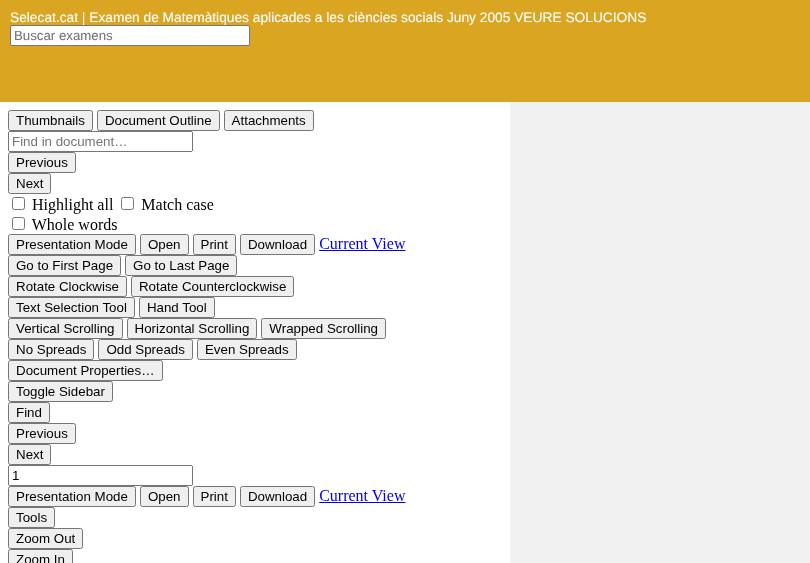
void draw(SkCanvas* canvas) {
  SkPaint paint;
  paint.setAntiAlias(true);
  auto face = [&](const char* family, int weight, float size, bool italic = false) {
    SkFontStyle style(weight, SkFontStyle::kNormal_Width,
      italic ? SkFontStyle::kItalic_Slant : SkFontStyle::kUpright_Slant);
    SkFont result(fontMgr->matchFamilyStyle(family, style), size);
    result.setSubpixel(true);
    return result;
  };
  auto paste = [&](const char* path, float x, float y, float w, float h) {
    auto image = SkImages::DeferredFromEncodedData(SkData::MakeFromFileName(path));
    canvas->drawImageRect(image, SkRect::MakeXYWH(x, y, w, h), SkSamplingOptions());
  };
  canvas->clear(0xffffffff);
  paint.setColor(0xffdaa520);
  canvas->drawRect(SkRect::MakeXYWH(0, 0, 810, 102), paint);
  paint.setColor(0xffffffff);
  canvas->drawRoundRect(SkRect::MakeXYWH(10.5f, 25.5f, 239, 20), 1.5f, 1.5f, paint);
  paint.setStroke(true);
  paint.setStrokeWidth(1);
  paint.setColor(0xff767676);
  canvas->drawRoundRect(SkRect::MakeXYWH(10.5f, 25.5f, 239, 20), 1.5f, 1.5f, paint);
  paste("img/1.png", 8, 110, 398, 453);
  paint.setStroke(false);
  paint.setColor(0xfff1f1f1);
  canvas->drawRect(SkRect::MakeXYWH(510, 102, 300, 461), paint);
  auto f0 = face("Liberation Sans", 400, 13.75f);
  paint.setColor(0xffffffff);
  canvas->drawString("Selecat.cat | Examen de Matemàtiques aplicades a les ciències socials Juny 2005 VEURE SOLUCIONS", 10, 22, f0, paint);
  auto f1 = face("Liberation Sans", 400, 13.25f);
  paint.setColor(0xff757575);
  canvas->drawString("Buscar examens", 14, 40, f1, paint);
}
